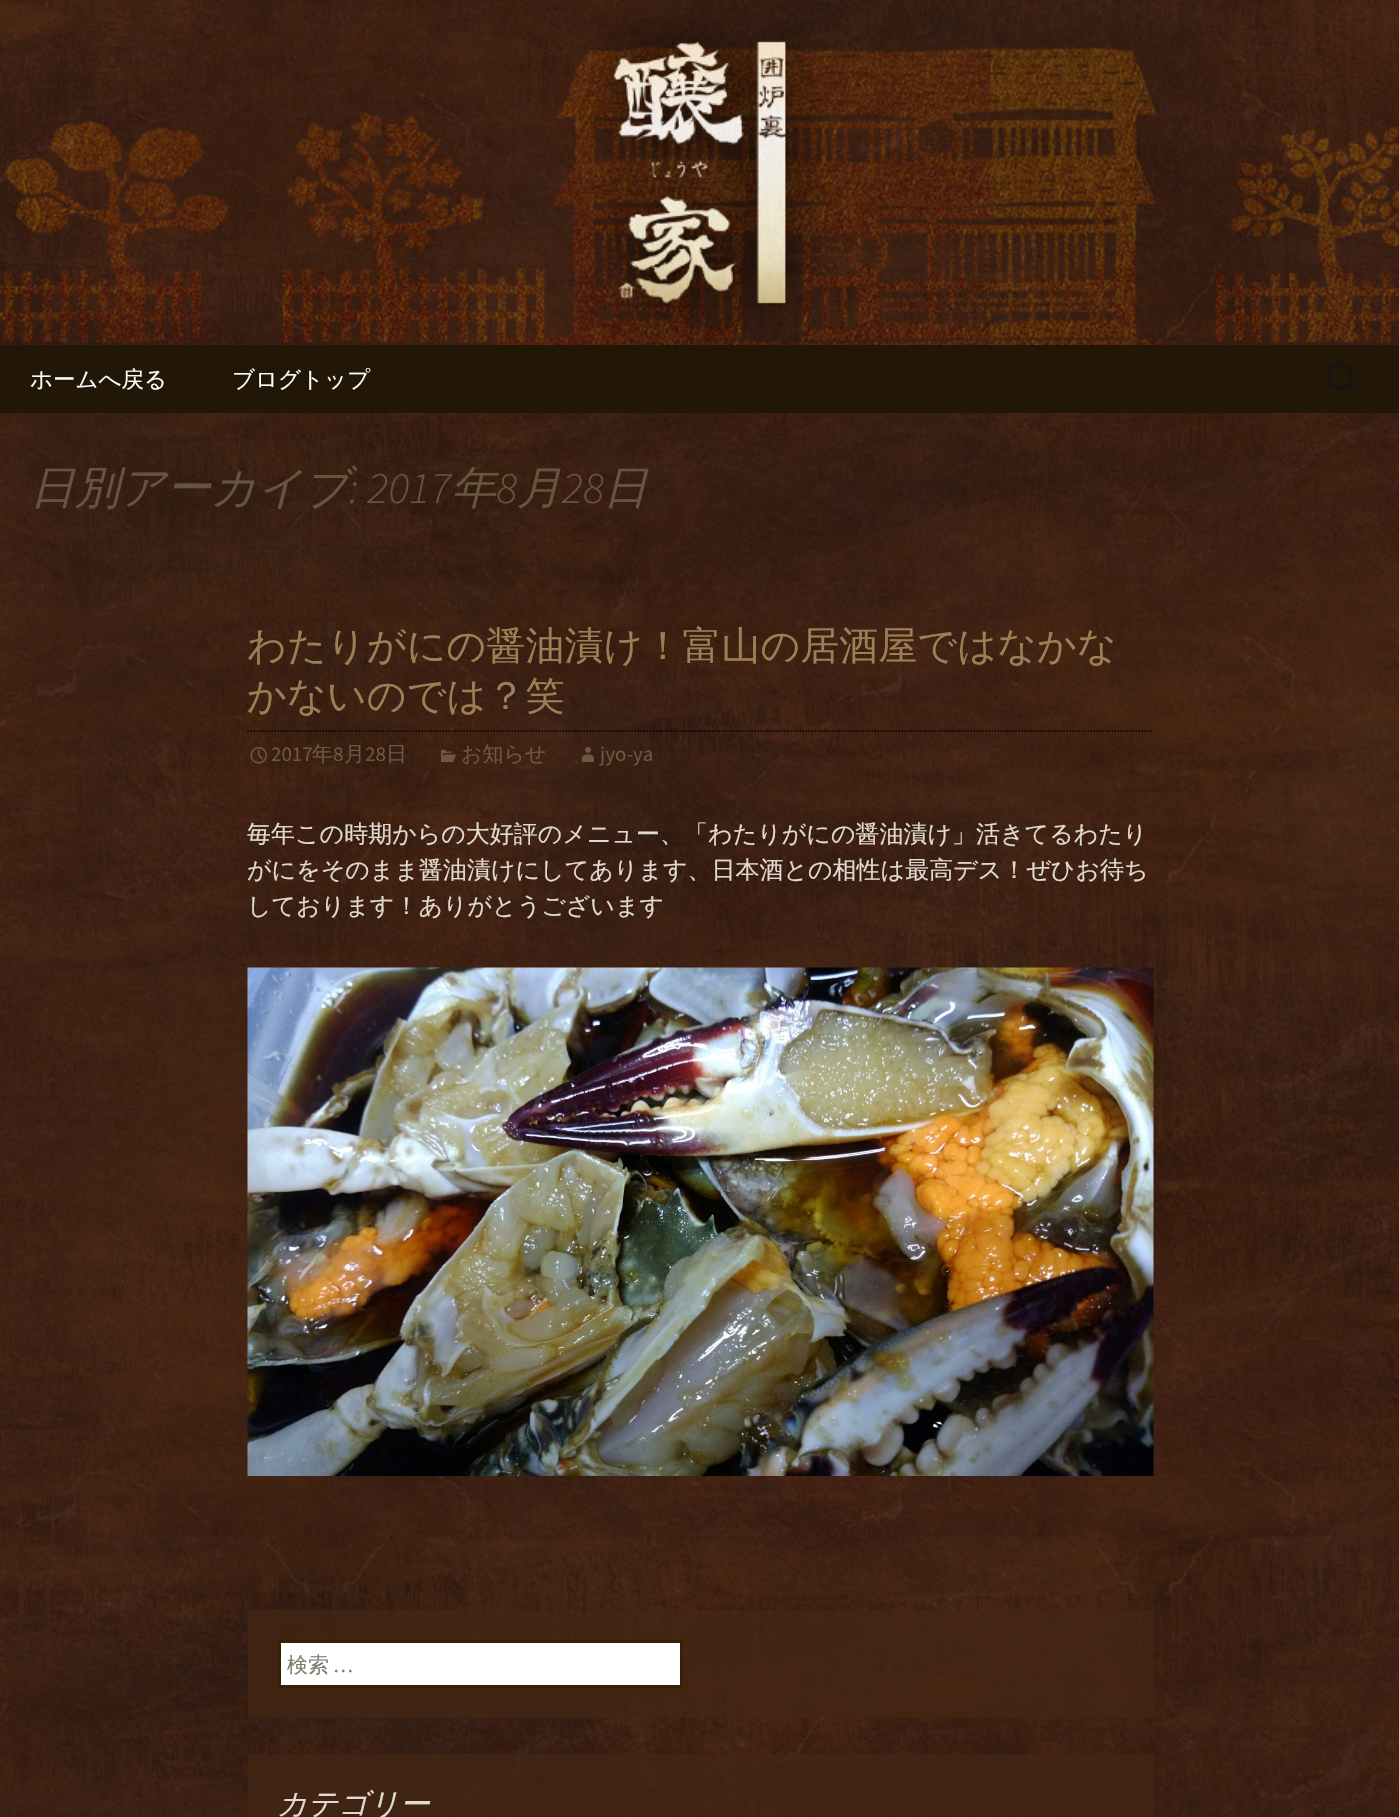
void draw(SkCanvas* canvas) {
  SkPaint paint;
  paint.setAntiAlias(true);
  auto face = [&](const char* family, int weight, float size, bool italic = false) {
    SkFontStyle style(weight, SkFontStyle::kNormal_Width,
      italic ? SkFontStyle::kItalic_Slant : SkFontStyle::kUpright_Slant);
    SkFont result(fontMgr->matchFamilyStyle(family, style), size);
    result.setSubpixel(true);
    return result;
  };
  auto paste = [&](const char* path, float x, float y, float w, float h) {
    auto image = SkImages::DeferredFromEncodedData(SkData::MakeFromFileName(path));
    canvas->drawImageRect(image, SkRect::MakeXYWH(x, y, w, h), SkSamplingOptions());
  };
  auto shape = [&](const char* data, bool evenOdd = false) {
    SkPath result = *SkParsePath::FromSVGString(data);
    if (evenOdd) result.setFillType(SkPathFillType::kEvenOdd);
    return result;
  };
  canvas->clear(0xffffffff);
  paste("img/1.png", 0, 413, 1399, 1404);
  paste("img/2.png", 0, 0, 1399, 345);
  paint.setColor(0xff221607);
  canvas->drawRect(SkRect::MakeXYWH(0, 345, 1399, 68), paint);
  paste("img/3.png", 1326, 363, 32, 32);
  paint.setStroke(true);
  paint.setStrokeWidth(1.5f);
  paint.setColor(0xff000000);
  paint.setPathEffect(SkDashPathEffect::Make({{1.5f, 1.5f}}, 0));
  canvas->drawPath(shape("M247.5 731H1153.5"), paint);
  paint.setPathEffect(nullptr);
  paste("img/4.png", 250, 747, 17, 17);
  paste("img/5.png", 441, 750, 15, 12);
  paste("img/6.png", 582, 747, 12, 15);
  paste("img/7.png", 247, 967, 907, 509);
  paint.setStroke(false);
  paint.setColor(0xb3442513);
  canvas->drawRect(SkRect::MakeXYWH(248, 1610, 906, 108), paint);
  paint.setColor(0xffffffff);
  canvas->drawRect(SkRect::MakeXYWH(279.5f, 1641.5f, 402, 45), paint);
  paint.setStroke(true);
  paint.setStrokeWidth(3);
  paint.setColor(0xff3a2103);
  canvas->drawRect(SkRect::MakeXYWH(279.5f, 1641.5f, 402, 45), paint);
  paint.setStroke(false);
  paint.setColor(0xb3442513);
  canvas->drawRect(SkRect::MakeXYWH(248, 1754, 906, 63), paint);
  auto f0 = face("WenQuanYi Zen Hei", 500, 22.5f);
  paint.setColor(0xffffffff);
  canvas->drawString("ホームへ戻る", 30, 387, f0, paint);
  canvas->drawString("ブログトップ", 232, 387, f0, paint);
  auto f1 = face("WenQuanYi Zen Hei", 500, 45, true);
  paint.setColor(0xff65553f);
  canvas->drawString("日別アーカイブ", 30, 503, f1, paint);
  auto f2 = face("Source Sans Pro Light", 300, 45, true);
  canvas->drawString(": 2017", 349, 503, f2, paint);
  canvas->drawString("年", 451, 503, f1, paint);
  canvas->drawString("8", 496, 503, f2, paint);
  canvas->drawString("月", 517, 503, f1, paint);
  canvas->drawString("28", 562, 503, f2, paint);
  canvas->drawString("日", 603, 503, f1, paint);
  auto f3 = face("WenQuanYi Zen Hei", 500, 39);
  paint.setColor(0xff9c7f55);
  canvas->drawString("わたりがにの醤油漬け！富山の居酒屋ではなかな", 247, 659, f3, paint);
  canvas->drawString("かないのでは？笑", 247, 709, f3, paint);
  auto f4 = face("Source Sans Pro", 400, 21);
  paint.setColor(0xff6e5840);
  canvas->drawString("2017", 271, 761, f4, paint);
  auto f5 = face("WenQuanYi Zen Hei", 500, 21);
  canvas->drawString("年", 312, 761, f5, paint);
  canvas->drawString("8", 333, 761, f4, paint);
  canvas->drawString("月", 344, 761, f5, paint);
  canvas->drawString("28", 365, 761, f4, paint);
  canvas->drawString("日", 386, 761, f5, paint);
  canvas->drawString("お知らせ", 461, 761, f5, paint);
  canvas->drawString("jyo-ya", 600, 761, f4, paint);
  auto f6 = face("WenQuanYi Zen Hei", 500, 24);
  paint.setColor(0xffe1dace);
  {
    const struct { const char* s; float x, y; } items[] = {
      {"毎年この時期からの大好評のメニュー、「わたりがにの醤油漬け」活きてるわたり", 247, 842},
      {"がにをそのまま醤油漬けにしてあります、日本酒との相性は最高デス！ぜひお待ち", 247, 878},
      {"しております！ありがとうございます", 247, 914},
    };
    for (auto [s, x, y] : items) {
      canvas->drawString(s, x, y, f6, paint);
    }
  }
  paint.setColor(0xff7d7b6d);
  canvas->drawString("検索", 287, 1672, f5, paint);
  canvas->drawString("…", 333, 1672, f4, paint);
  auto f7 = face("WenQuanYi Zen Hei", 500, 30, true);
  paint.setColor(0xffe1dace);
  canvas->drawString("カテゴリー", 277, 1814, f7, paint);
}
